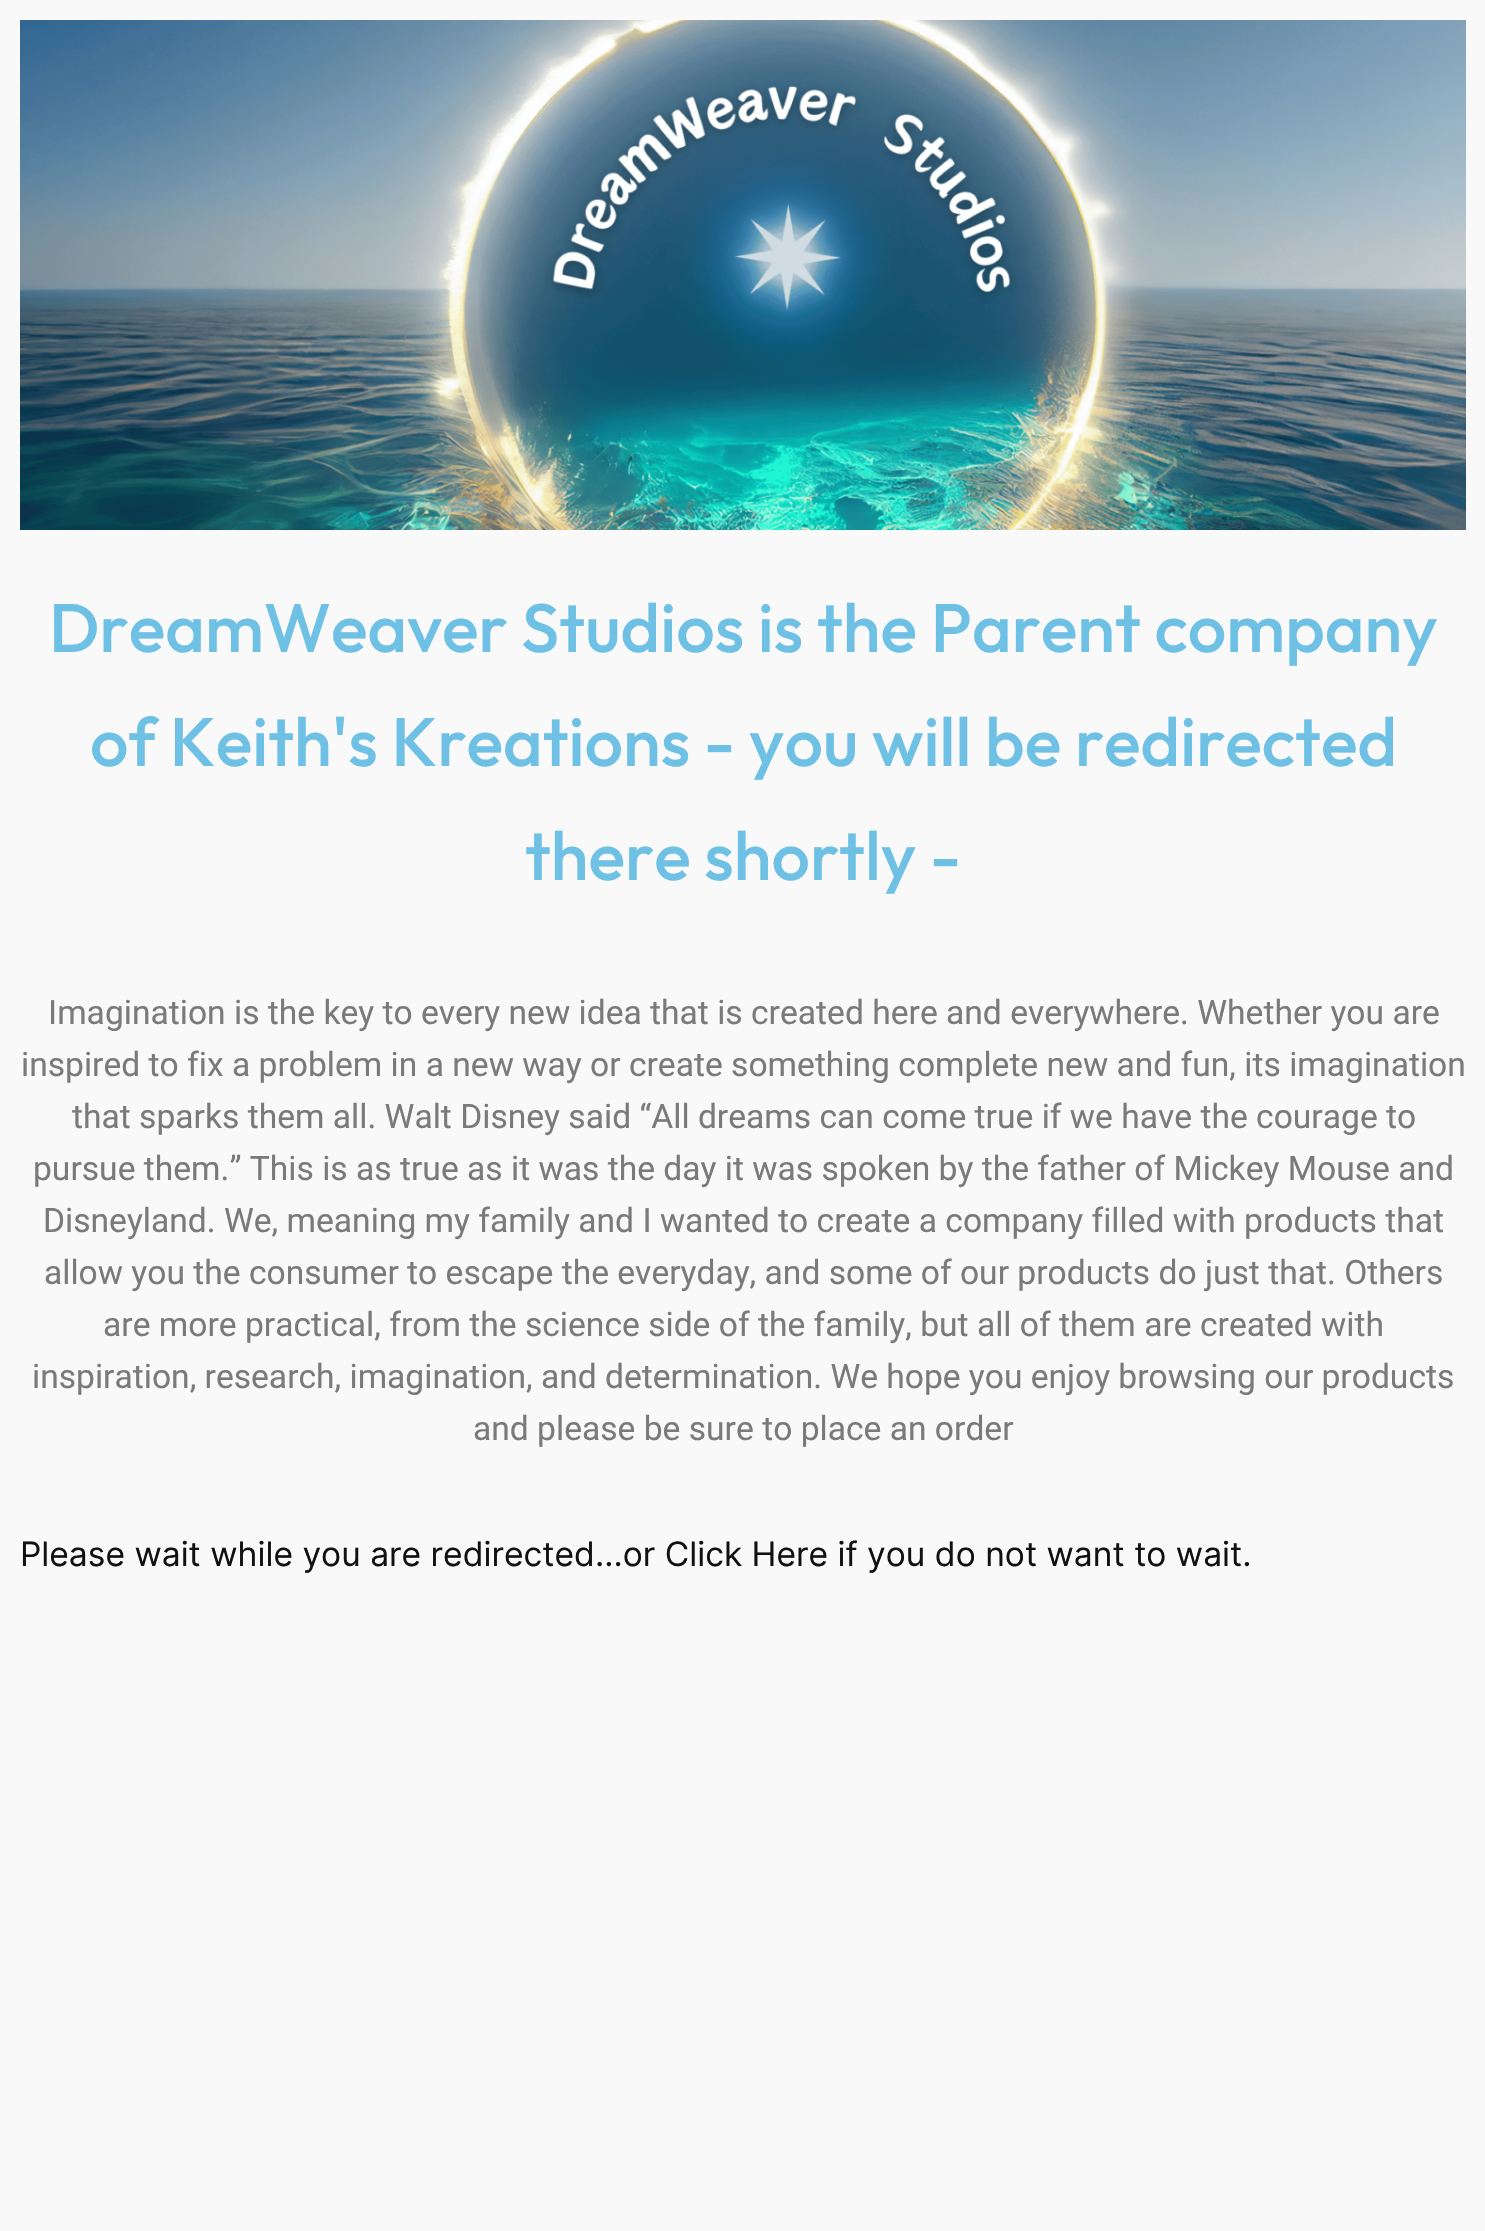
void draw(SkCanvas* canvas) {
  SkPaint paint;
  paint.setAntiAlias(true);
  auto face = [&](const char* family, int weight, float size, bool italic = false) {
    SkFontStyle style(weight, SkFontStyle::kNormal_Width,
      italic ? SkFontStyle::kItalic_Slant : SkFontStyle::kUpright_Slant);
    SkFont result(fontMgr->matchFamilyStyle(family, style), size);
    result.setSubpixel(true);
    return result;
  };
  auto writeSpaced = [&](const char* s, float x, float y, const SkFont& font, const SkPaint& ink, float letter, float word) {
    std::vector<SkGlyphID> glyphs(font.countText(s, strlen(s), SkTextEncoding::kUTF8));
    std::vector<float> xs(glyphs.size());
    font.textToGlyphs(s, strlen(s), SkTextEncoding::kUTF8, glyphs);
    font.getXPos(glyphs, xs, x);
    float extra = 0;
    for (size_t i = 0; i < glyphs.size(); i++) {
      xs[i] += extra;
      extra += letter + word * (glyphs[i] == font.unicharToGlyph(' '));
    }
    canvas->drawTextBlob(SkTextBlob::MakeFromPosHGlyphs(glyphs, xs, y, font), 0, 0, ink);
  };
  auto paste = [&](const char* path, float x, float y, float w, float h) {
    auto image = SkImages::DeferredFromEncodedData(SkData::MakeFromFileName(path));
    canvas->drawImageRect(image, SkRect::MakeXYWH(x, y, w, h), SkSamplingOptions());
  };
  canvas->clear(0xfff9f9f9);
  paste("img/1.png", 20, 20, 1446, 510);
  auto f0 = face("Outfit", 500, 68.4f);
  paint.setColor(0xff6ec1e4);
  {
    const struct { const char* s; float x, y; } items[] = {
      {"DreamWeaver Studios is the Parent company", 49, 652},
      {"of Keith's Kreations - you will be redirected", 90, 766},
      {"there shortly -", 525, 880},
    };
    for (auto [s, x, y] : items) {
      canvas->drawString(s, x, y, f0, paint);
    }
  }
  auto f1 = face("Roboto", 400, 33.6f);
  paint.setColor(0xff7a7a7a);
  {
    const struct { const char* s; float x, y; } items[] = {
      {"Imagination is the key to every new idea that is created here and everywhere. Whether you are", 48, 1024},
      {"inspired to fix a problem in a new way or create something complete new and fun, its imagination", 21, 1076},
      {"that sparks them all. Walt Disney said “All dreams can come true if we have the courage to", 72, 1128},
      {"pursue them.” This is as true as it was the day it was spoken by the father of Mickey Mouse and", 33, 1180},
      {"Disneyland. We, meaning my family and I wanted to create a company filled with products that", 43, 1232},
      {"allow you the consumer to escape the everyday, and some of our products do just that. Others", 44, 1284},
      {"are more practical, from the science side of the family, but all of them are created with", 103, 1336},
    };
    for (auto [s, x, y] : items) {
      canvas->drawString(s, x, y, f1, paint);
    }
  }
  writeSpaced("inspiration, research, imagination, and determination. We hope you enjoy browsing our products", 32, 1388, f1, paint, 0, -0.1f);
  canvas->drawString("and please be sure to place an order", 473, 1440, f1, paint);
  auto f2 = face("Inter", 400, 33.6f);
  paint.setColor(0xff111111);
  canvas->drawString("Please wait while you are redirected...or Click Here if you do not want to wait.", 20, 1566, f2, paint);
}
